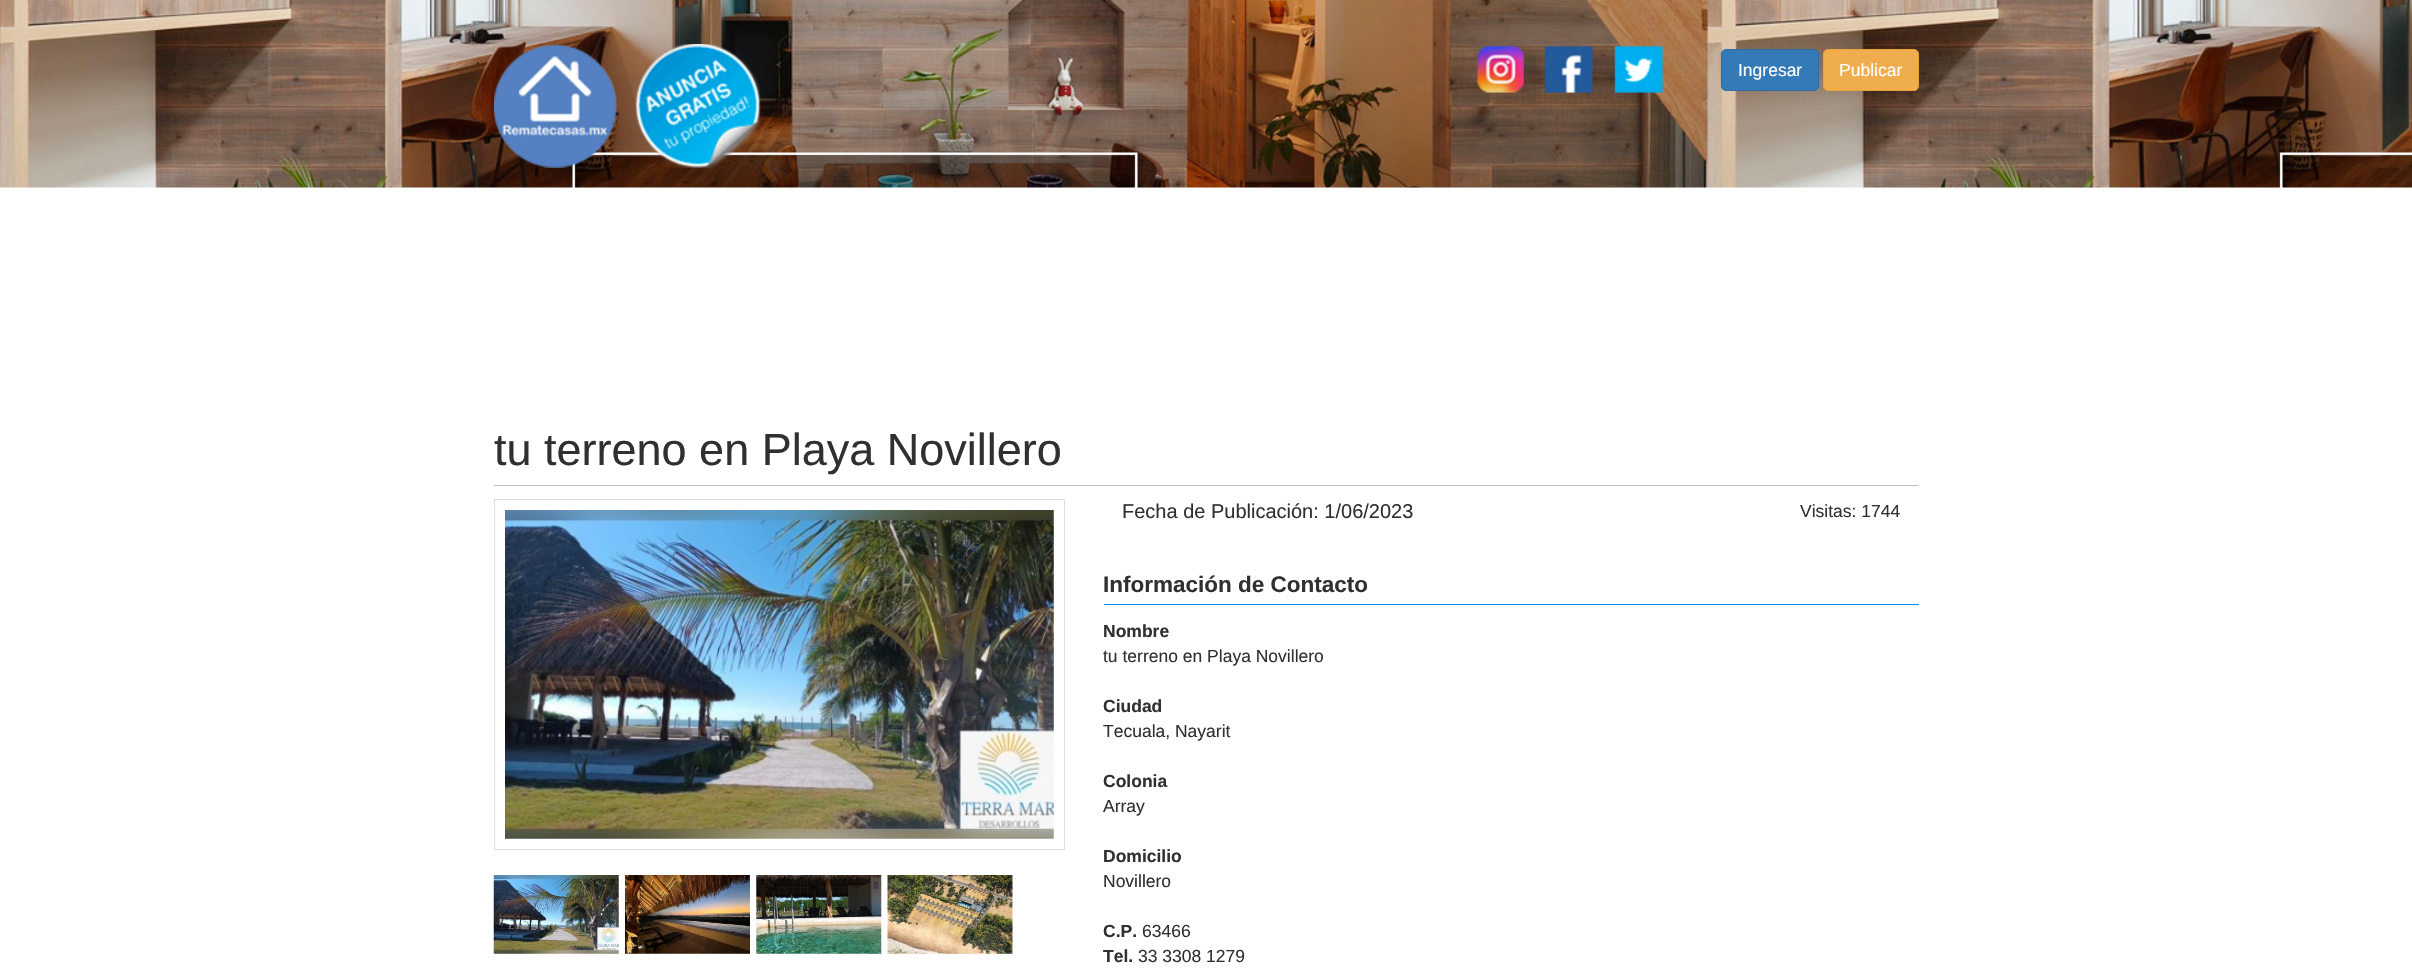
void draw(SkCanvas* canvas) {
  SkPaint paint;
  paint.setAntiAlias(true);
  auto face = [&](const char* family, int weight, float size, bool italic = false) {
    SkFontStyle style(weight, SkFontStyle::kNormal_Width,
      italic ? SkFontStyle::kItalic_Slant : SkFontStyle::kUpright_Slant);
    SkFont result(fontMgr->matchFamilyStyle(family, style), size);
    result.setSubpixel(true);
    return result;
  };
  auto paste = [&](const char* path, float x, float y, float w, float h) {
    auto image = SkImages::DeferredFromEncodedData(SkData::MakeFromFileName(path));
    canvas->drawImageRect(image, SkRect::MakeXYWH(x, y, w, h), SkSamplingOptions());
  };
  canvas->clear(0xffffffff);
  paste("img/1.png", 0, 0, 2412, 188);
  paste("img/2.png", 494, 44, 123, 124);
  paste("img/3.png", 635, 44, 126, 124);
  paste("img/4.png", 1476, 45, 48, 48);
  paste("img/5.png", 1544, 45, 49, 48);
  paste("img/6.png", 1614, 45, 49, 48);
  paint.setColor(0xff337ab7);
  canvas->drawRoundRect(SkRect::MakeXYWH(1721.5f, 49.5f, 97, 41), 4.5f, 4.5f, paint);
  paint.setStroke(true);
  paint.setStrokeWidth(1);
  paint.setColor(0xff2e6da4);
  canvas->drawRoundRect(SkRect::MakeXYWH(1721.5f, 49.5f, 97, 41), 4.5f, 4.5f, paint);
  paint.setStroke(false);
  paint.setColor(0xfff0ad4e);
  canvas->drawRoundRect(SkRect::MakeXYWH(1823.5f, 49.5f, 95, 41), 4.5f, 4.5f, paint);
  paint.setStroke(true);
  paint.setColor(0xffeea236);
  canvas->drawRoundRect(SkRect::MakeXYWH(1823.5f, 49.5f, 95, 41), 4.5f, 4.5f, paint);
  paint.setStroke(false);
  paint.setColor(0xffc1c1c1);
  canvas->drawRect(SkRect::MakeXYWH(494, 485, 1425, 1), paint);
  paint.setStroke(true);
  paint.setColor(0xffdedede);
  canvas->drawRect(SkRect::MakeXYWH(494.5f, 499.5f, 570, 350), paint);
  paste("img/7.png", 505, 510, 549, 329);
  paste("img/8.png", 493, 875, 126, 79);
  paste("img/9.png", 625, 875, 125, 79);
  paste("img/10.png", 756, 875, 126, 79);
  paste("img/11.png", 887, 875, 126, 79);
  paint.setStroke(false);
  paint.setColor(0xff008cfa);
  canvas->drawRect(SkRect::MakeXYWH(1104, 604, 815, 1), paint);
  auto f0 = face("Liberation Sans", 400, 17.5f);
  paint.setColor(0xffffffff);
  canvas->drawString("Ingresar", 1738, 76, f0, paint);
  canvas->drawString("Publicar", 1839, 76, f0, paint);
  auto f1 = face("Liberation Sans", 400, 45);
  paint.setColor(0xff303030);
  canvas->drawString("tu terreno en Playa Novillero", 494, 465, f1, paint);
  auto f2 = face("Liberation Sans", 400, 20);
  canvas->drawString("Fecha de Publicación: 1/06/2023", 1122, 518, f2, paint);
  canvas->drawString("Visitas: 1744", 1800, 517, f0, paint);
  auto f3 = face("Liberation Sans", 700, 22.5f);
  canvas->drawString("Información de Contacto", 1103, 592, f3, paint);
  auto f4 = face("Liberation Sans", 700, 17.5f);
  canvas->drawString("Nombre", 1103, 637, f4, paint);
  canvas->drawString("tu terreno en Playa Novillero", 1103, 662, f0, paint);
  canvas->drawString("Ciudad", 1103, 712, f4, paint);
  canvas->drawString("Tecuala, Nayarit", 1103, 737, f0, paint);
  canvas->drawString("Colonia", 1103, 787, f4, paint);
  canvas->drawString("Array", 1103, 812, f0, paint);
  canvas->drawString("Domicilio", 1103, 862, f4, paint);
  canvas->drawString("Novillero", 1103, 887, f0, paint);
  canvas->drawString("C.P.", 1103, 937, f4, paint);
  canvas->drawString("63466", 1142, 937, f0, paint);
  canvas->drawString("Tel.", 1103, 962, f4, paint);
  canvas->drawString("33 3308 1279", 1138, 962, f0, paint);
}
